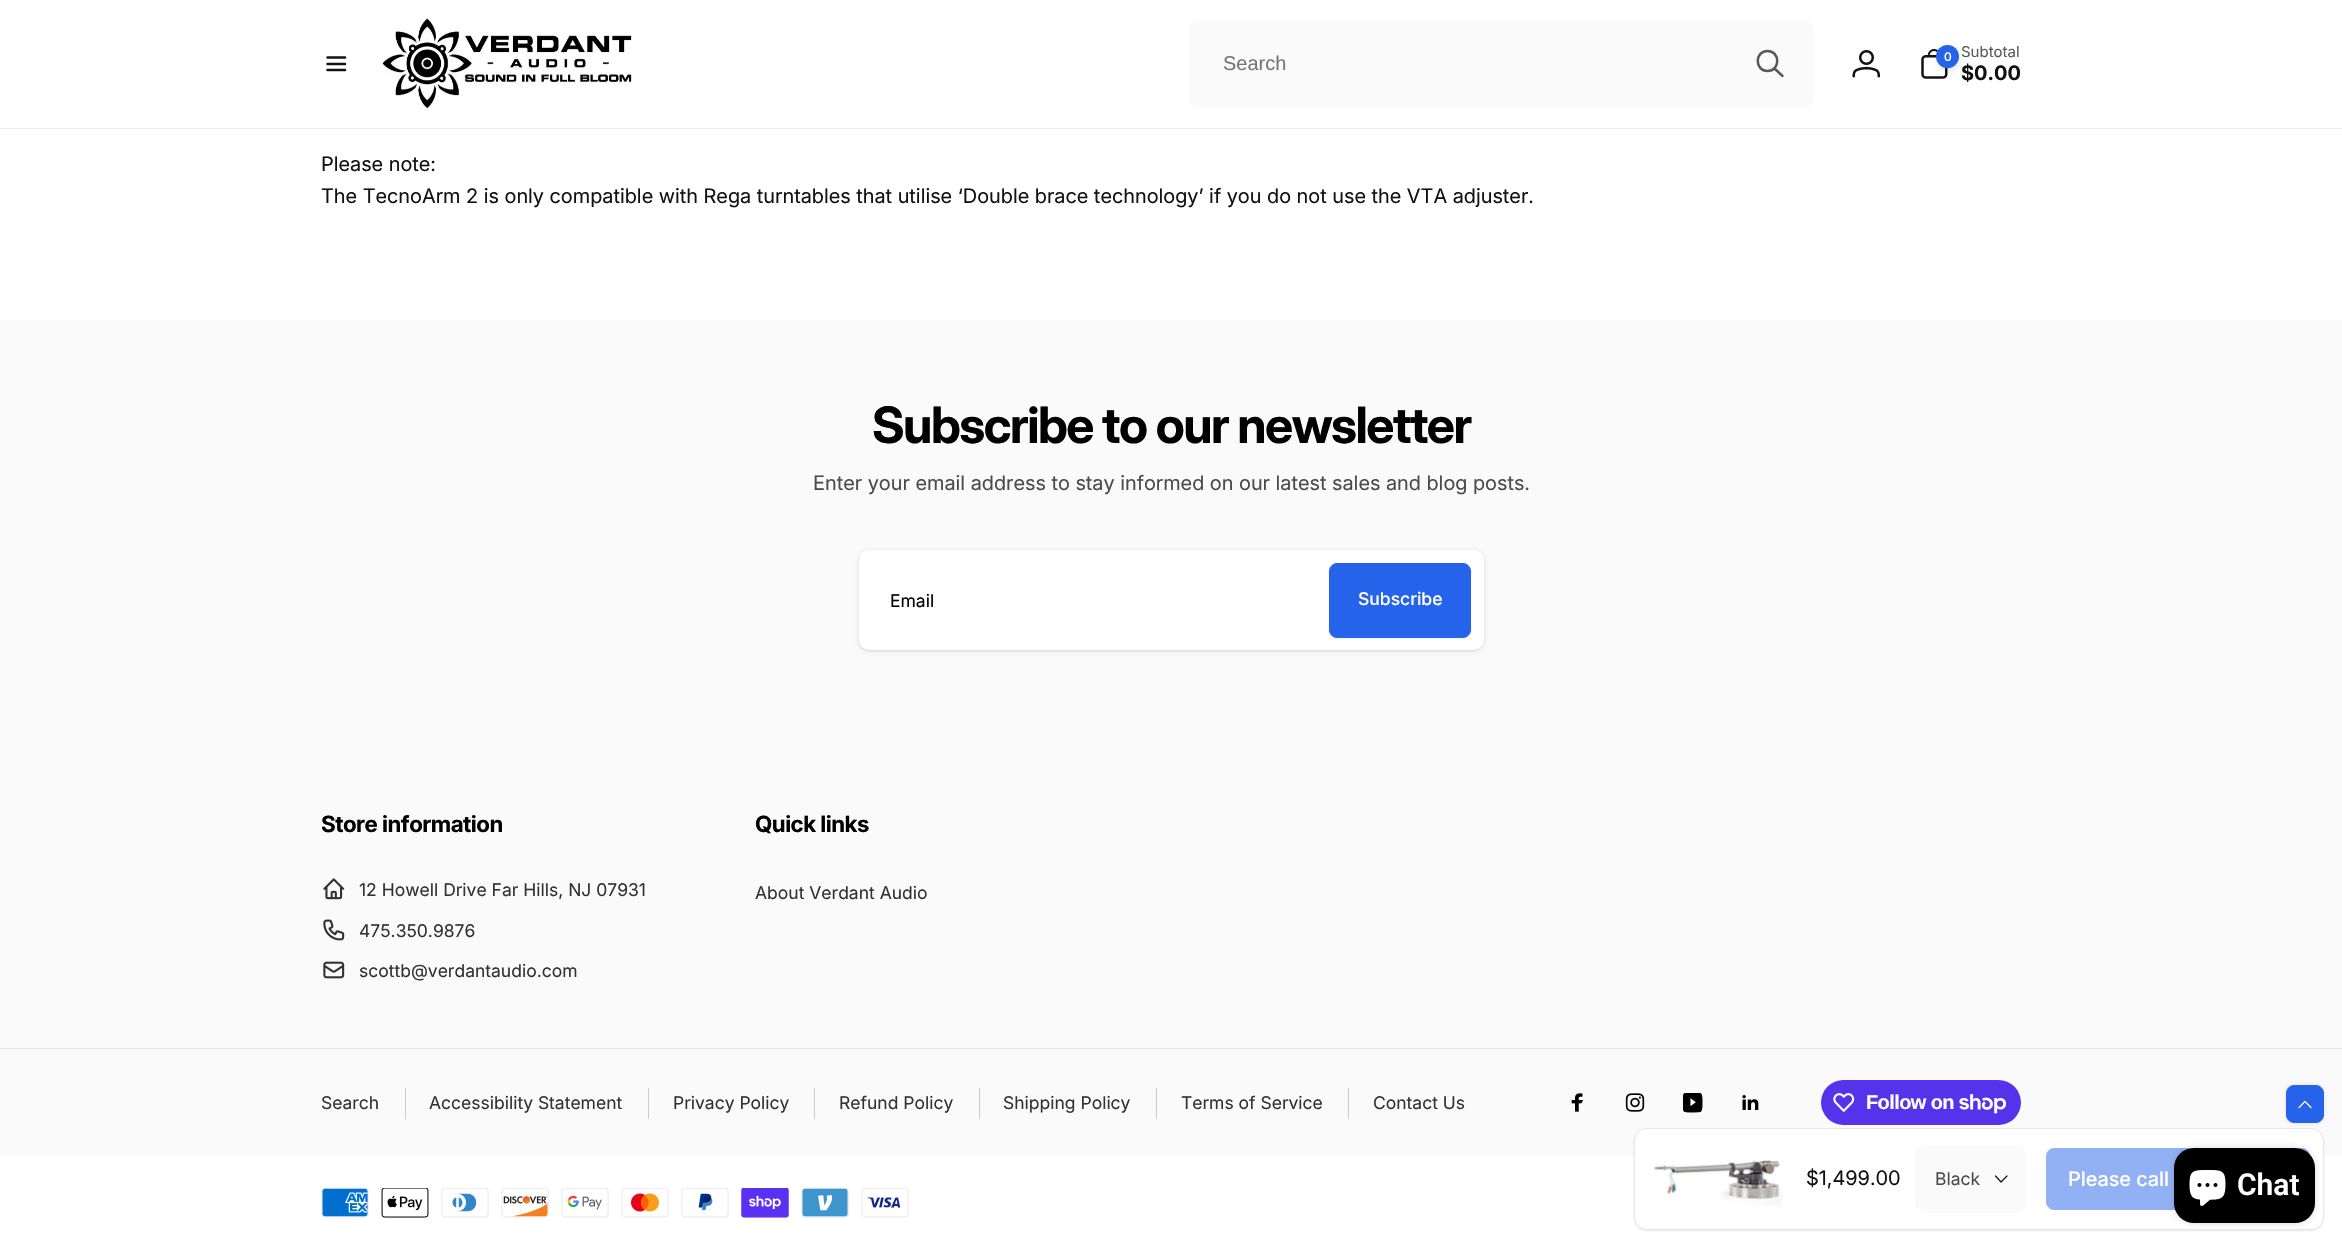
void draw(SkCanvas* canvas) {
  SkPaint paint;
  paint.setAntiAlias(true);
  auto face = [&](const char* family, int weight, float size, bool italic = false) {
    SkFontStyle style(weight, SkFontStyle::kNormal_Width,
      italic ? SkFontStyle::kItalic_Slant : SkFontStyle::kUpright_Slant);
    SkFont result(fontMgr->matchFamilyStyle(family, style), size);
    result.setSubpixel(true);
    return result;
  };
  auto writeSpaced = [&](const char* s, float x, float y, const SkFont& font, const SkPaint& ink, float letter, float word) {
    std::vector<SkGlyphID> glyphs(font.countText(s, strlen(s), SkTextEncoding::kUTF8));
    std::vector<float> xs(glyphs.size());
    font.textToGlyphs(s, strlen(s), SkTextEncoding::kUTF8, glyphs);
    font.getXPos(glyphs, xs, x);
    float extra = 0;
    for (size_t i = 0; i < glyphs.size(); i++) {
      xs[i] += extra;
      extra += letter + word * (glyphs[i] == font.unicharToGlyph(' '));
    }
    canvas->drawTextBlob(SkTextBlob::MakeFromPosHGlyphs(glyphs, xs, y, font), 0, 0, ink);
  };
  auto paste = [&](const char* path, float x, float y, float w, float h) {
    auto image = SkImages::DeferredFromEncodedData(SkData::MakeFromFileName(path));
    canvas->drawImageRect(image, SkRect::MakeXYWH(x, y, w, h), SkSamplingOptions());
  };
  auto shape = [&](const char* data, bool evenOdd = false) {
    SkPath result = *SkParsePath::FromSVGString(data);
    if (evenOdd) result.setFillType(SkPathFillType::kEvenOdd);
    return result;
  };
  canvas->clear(0xffffffff);
  paint.setColor(0xffececec);
  canvas->drawRect(SkRect::MakeXYWH(0, 128, 2342, 1), paint);
  paint.setStroke(true);
  paint.setStrokeWidth(2.5f);
  paint.setStrokeCap(SkPaint::kRound_Cap);
  paint.setColor(0xff121212);
  canvas->drawPath(shape("M327.5 57.5H345M327.5 64H345M327.5 70H345"), paint);
  paste("img/1.png", 382, 18, 250, 91);
  paint.setStroke(false);
  paint.setColor(0xfffafafa);
  canvas->drawRoundRect(SkRect::MakeXYWH(1189, 20, 625, 88), 10, 10, paint);
  paint.setStroke(true);
  paint.setStrokeJoin(SkPaint::kRound_Join);
  paint.setColor(0xff585858);
  canvas->drawPath(shape("M1782.5 76L1774.5 68.5M1767.5 71C1780.5 71 1780.5 51 1767.5 51C1754.5 51 1754.5 71 1767.5 71Z"), paint);
  paste("img/2.png", 1852, 50, 28, 28);
  paste("img/3.png", 1921, 49, 27, 30);
  paint.setStroke(false);
  paint.setColor(0x0f121212);
  paint.setMaskFilter(SkMaskFilter::MakeBlur(kNormal_SkBlurStyle, 2.5f));
  canvas->drawRoundRect(SkRect::MakeXYWH(1938, 49, 20, 20), 10, 10, paint);
  paint.setMaskFilter(nullptr);
  paint.setColor(0x1a121212);
  paint.setMaskFilter(SkMaskFilter::MakeBlur(kNormal_SkBlurStyle, 4));
  canvas->drawRoundRect(SkRect::MakeXYWH(1938, 51, 20, 20), 10, 10, paint);
  paint.setMaskFilter(nullptr);
  paint.setColor(0xff2563eb);
  canvas->drawCircle(1947.5f, 56.5f, 11.5f, paint);
  paint.setColor(0xfffafafa);
  canvas->drawRect(SkRect::MakeXYWH(0, 320, 2342, 836), paint);
  paint.setColor(0x1a121212);
  paint.setMaskFilter(SkMaskFilter::MakeBlur(kNormal_SkBlurStyle, 1));
  canvas->drawRoundRect(SkRect::MakeXYWH(1634, 1129, 690, 102), 13, 13, paint);
  paint.setMaskFilter(nullptr);
  paint.setColor(0x1a000000);
  paint.setMaskFilter(SkMaskFilter::MakeBlur(kNormal_SkBlurStyle, 2));
  canvas->drawRoundRect(SkRect::MakeXYWH(2286, 1085, 38, 38), 8, 8, paint);
  paint.setMaskFilter(nullptr);
  paint.setColor(0xffffffff);
  canvas->drawRoundRect(SkRect::MakeXYWH(1634, 1128, 690, 102), 13, 13, paint);
  paint.setStroke(true);
  paint.setStrokeWidth(1);
  paint.setStrokeCap(SkPaint::kButt_Cap);
  paint.setStrokeJoin(SkPaint::kMiter_Join);
  paint.setColor(0x1a121212);
  canvas->drawRoundRect(SkRect::MakeXYWH(1634.5f, 1128.5f, 689, 101), 12.5f, 12.5f, paint);
  paste("img/4.png", 1653, 1160, 130, 47);
  paint.setStroke(false);
  paint.setColor(0xfffafafa);
  canvas->drawRoundRect(SkRect::MakeXYWH(1915, 1145, 111, 68), 10, 10, paint);
  paint.setStroke(true);
  paint.setStrokeWidth(1.2f);
  paint.setStrokeCap(SkPaint::kRound_Cap);
  paint.setStrokeJoin(SkPaint::kRound_Join);
  paint.setColor(0xff121212);
  canvas->drawPath(shape("M2007 1176L2001 1182L1995.5 1176"), paint);
  paint.setStroke(false);
  paint.setColor(0xff92b1f5);
  canvas->drawRoundRect(SkRect::MakeXYWH(2046.5f, 1148.5f, 263, 61), 7.5f, 7.5f, paint);
  paint.setStroke(true);
  paint.setStrokeWidth(1);
  paint.setStrokeCap(SkPaint::kButt_Cap);
  paint.setStrokeJoin(SkPaint::kMiter_Join);
  canvas->drawRoundRect(SkRect::MakeXYWH(2046.5f, 1148.5f, 263, 61), 7.5f, 7.5f, paint);
  paint.setStroke(false);
  paint.setColor(0x1a000000);
  paint.setMaskFilter(SkMaskFilter::MakeBlur(kNormal_SkBlurStyle, 2));
  canvas->drawRoundRect(SkRect::MakeXYWH(859, 551, 625, 100), 10, 10, paint);
  paint.setMaskFilter(nullptr);
  paint.setColor(0x0f000000);
  paint.setMaskFilter(SkMaskFilter::MakeBlur(kNormal_SkBlurStyle, 1));
  canvas->drawRoundRect(SkRect::MakeXYWH(859, 551, 625, 100), 10, 10, paint);
  paint.setMaskFilter(nullptr);
  paint.setColor(0xffffffff);
  canvas->drawRoundRect(SkRect::MakeXYWH(859, 550, 625, 100), 10, 10, paint);
  paint.setColor(0x0d000000);
  paint.setMaskFilter(SkMaskFilter::MakeBlur(kNormal_SkBlurStyle, 1));
  canvas->drawRoundRect(SkRect::MakeXYWH(1329, 564, 142, 75), 8, 8, paint);
  paint.setMaskFilter(nullptr);
  paint.setColor(0xff2563eb);
  canvas->drawRoundRect(SkRect::MakeXYWH(1329.5f, 563.5f, 141, 74), 7.5f, 7.5f, paint);
  paint.setStroke(true);
  canvas->drawRoundRect(SkRect::MakeXYWH(1329.5f, 563.5f, 141, 74), 7.5f, 7.5f, paint);
  paste("img/5.png", 323, 878, 22, 22);
  paste("img/6.png", 323, 919, 22, 22);
  paste("img/7.png", 323, 961, 22, 18);
  paint.setStroke(false);
  {
    const struct { float x, y, w, h; SkColor color; } items[] = {
      {0, 1048, 2342, 1, 0xffe6e6e6},
      {405, 1088, 1, 31, 0xffcdcdcd},
      {648, 1088, 1, 31, 0xffcdcdcd},
      {814, 1088, 1, 31, 0xffcdcdcd},
      {979, 1088, 1, 31, 0xffcdcdcd},
      {1156, 1088, 1, 31, 0xffcdcdcd},
      {1348, 1088, 1, 31, 0xffcdcdcd},
    };
    for (auto [x, y, w, h, color] : items) {
      paint.setColor(color);
      canvas->drawRect(SkRect::MakeXYWH(x, y, w, h), paint);
    }
  }
  paste("img/8.png", 1571, 1093, 12, 19);
  paste("img/9.png", 1625, 1093, 20, 19);
  paste("img/10.png", 1683, 1093, 20, 20);
  paste("img/11.png", 1742, 1095, 17, 15);
  paint.setColor(0xff5433eb);
  canvas->drawRoundRect(SkRect::MakeXYWH(1821, 1080, 200, 45), 22.5f, 22.5f, paint);
  paste("img/12.png", 1833, 1093, 22, 19);
  paste("img/13.png", 1959, 1094, 47, 20);
  paste("img/14.png", 321, 1188, 48, 30);
  paste("img/15.png", 381, 1188, 48, 30);
  paste("img/16.png", 441, 1188, 48, 30);
  paste("img/17.png", 501, 1188, 48, 30);
  paste("img/18.png", 561, 1188, 48, 30);
  paste("img/19.png", 621, 1188, 48, 30);
  paste("img/20.png", 681, 1188, 48, 30);
  paste("img/21.png", 741, 1188, 48, 30);
  paste("img/22.png", 801, 1188, 48, 30);
  paste("img/23.png", 861, 1188, 48, 30);
  paint.setColor(0xff2563eb);
  canvas->drawRoundRect(SkRect::MakeXYWH(2286.5f, 1085.5f, 37, 37), 7.5f, 7.5f, paint);
  paint.setStroke(true);
  canvas->drawRoundRect(SkRect::MakeXYWH(2286.5f, 1085.5f, 37, 37), 7.5f, 7.5f, paint);
  paint.setStrokeWidth(1.2f);
  paint.setStrokeCap(SkPaint::kRound_Cap);
  paint.setStrokeJoin(SkPaint::kRound_Join);
  paint.setColor(0xffffffff);
  canvas->drawPath(shape("M2299 1107.5L2305 1101.5L2311 1107.5"), paint);
  paint.setStroke(false);
  paint.setColor(0x26000000);
  paint.setMaskFilter(SkMaskFilter::MakeBlur(kNormal_SkBlurStyle, 3));
  canvas->drawRoundRect(SkRect::MakeXYWH(2174, 1148, 141, 75), 20, 20, paint);
  paint.setMaskFilter(nullptr);
  paint.setColor(0xff000000);
  canvas->drawRoundRect(SkRect::MakeXYWH(2174, 1148, 141, 75), 20, 20, paint);
  paste("img/24.png", 2189, 1170, 37, 36);
  auto f0 = face("Liberation Sans", 400, 20);
  paint.setColor(0xff757575);
  canvas->drawString("Search", 1223, 70, f0, paint);
  auto f1 = face("Inter", 500, 12);
  paint.setColor(0xffffffff);
  canvas->drawString("0", 1944, 61, f1, paint);
  auto f2 = face("Inter", 400, 15);
  paint.setColor(0xff595959);
  canvas->drawString("Subtotal", 1961, 57, f2, paint);
  auto f3 = face("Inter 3", 700, 20);
  paint.setColor(0xff121212);
  canvas->drawString("$0.00", 1961, 80, f3, paint);
  auto f4 = face("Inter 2", 400, 20);
  {
    const struct { const char* s; float x, y; } items[] = {
      {"Please note:", 321, 171},
      {"The TecnoArm 2 is only compatible with Rega turntables that utilise ‘Double brace technology’ if you do not use the VTA adjuster.", 321, 203},
      {"$1,499.00", 1806, 1185},
    };
    for (auto [s, x, y] : items) {
      canvas->drawString(s, x, y, f4, paint);
    }
  }
  auto f5 = face("Inter", 400, 17.5f);
  paint.setColor(0xff4b4b4b);
  canvas->drawString("Black", 1935, 1185, f5, paint);
  auto f6 = face("Inter 2", 500, 20);
  paint.setColor(0xffffffff);
  canvas->drawString("Please call", 2068, 1186, f6, paint);
  auto f7 = face("Inter 2", 700, 50);
  paint.setColor(0xff000000);
  writeSpaced("Subscribe to our newsletter", 872, 443, f7, paint, -1.5f, 0);
  paint.setColor(0xff4b4b4b);
  canvas->drawString("Enter your email address to stay informed on our latest sales and blog posts.", 813, 490, f4, paint);
  paint.setColor(0xff000000);
  canvas->drawString("Email", 890, 607, f5, paint);
  auto f8 = face("Inter", 500, 17.5f);
  paint.setColor(0xffffffff);
  canvas->drawString("Subscribe", 1358, 605, f8, paint);
  auto f9 = face("Inter", 700, 22.5f);
  paint.setColor(0xff000000);
  writeSpaced("Store information", 321, 832, f9, paint, -0.5f, 0);
  paint.setColor(0xff323232);
  {
    const struct { const char* s; float x, y; } items[] = {
      {"12 Howell Drive Far Hills, NJ 07931", 359, 896},
      {"475.350.9876", 359, 937},
      {"scottb@verdantaudio.com", 359, 977},
    };
    for (auto [s, x, y] : items) {
      canvas->drawString(s, x, y, f5, paint);
    }
  }
  paint.setColor(0xff000000);
  writeSpaced("Quick links", 755, 832, f9, paint, -0.5f, 0);
  paint.setColor(0xff323232);
  {
    const struct { const char* s; float x, y; } items[] = {
      {"About Verdant Audio", 755, 899},
      {"Search", 321, 1109},
      {"Accessibility Statement", 429, 1109},
      {"Privacy Policy", 673, 1109},
      {"Refund Policy", 839, 1109},
      {"Shipping Policy", 1003, 1109},
      {"Terms of Service", 1181, 1109},
      {"Contact Us", 1373, 1109},
    };
    for (auto [s, x, y] : items) {
      canvas->drawString(s, x, y, f5, paint);
    }
  }
  auto f10 = face("Liberation Sans", 700, 20);
  paint.setColor(0xffffffff);
  writeSpaced("Follow on", 1866, 1109, f10, paint, -0.6f, 0);
  auto f11 = face("Roboto", 600, 30);
  canvas->drawString("Chat", 2237, 1195, f11, paint);
}
